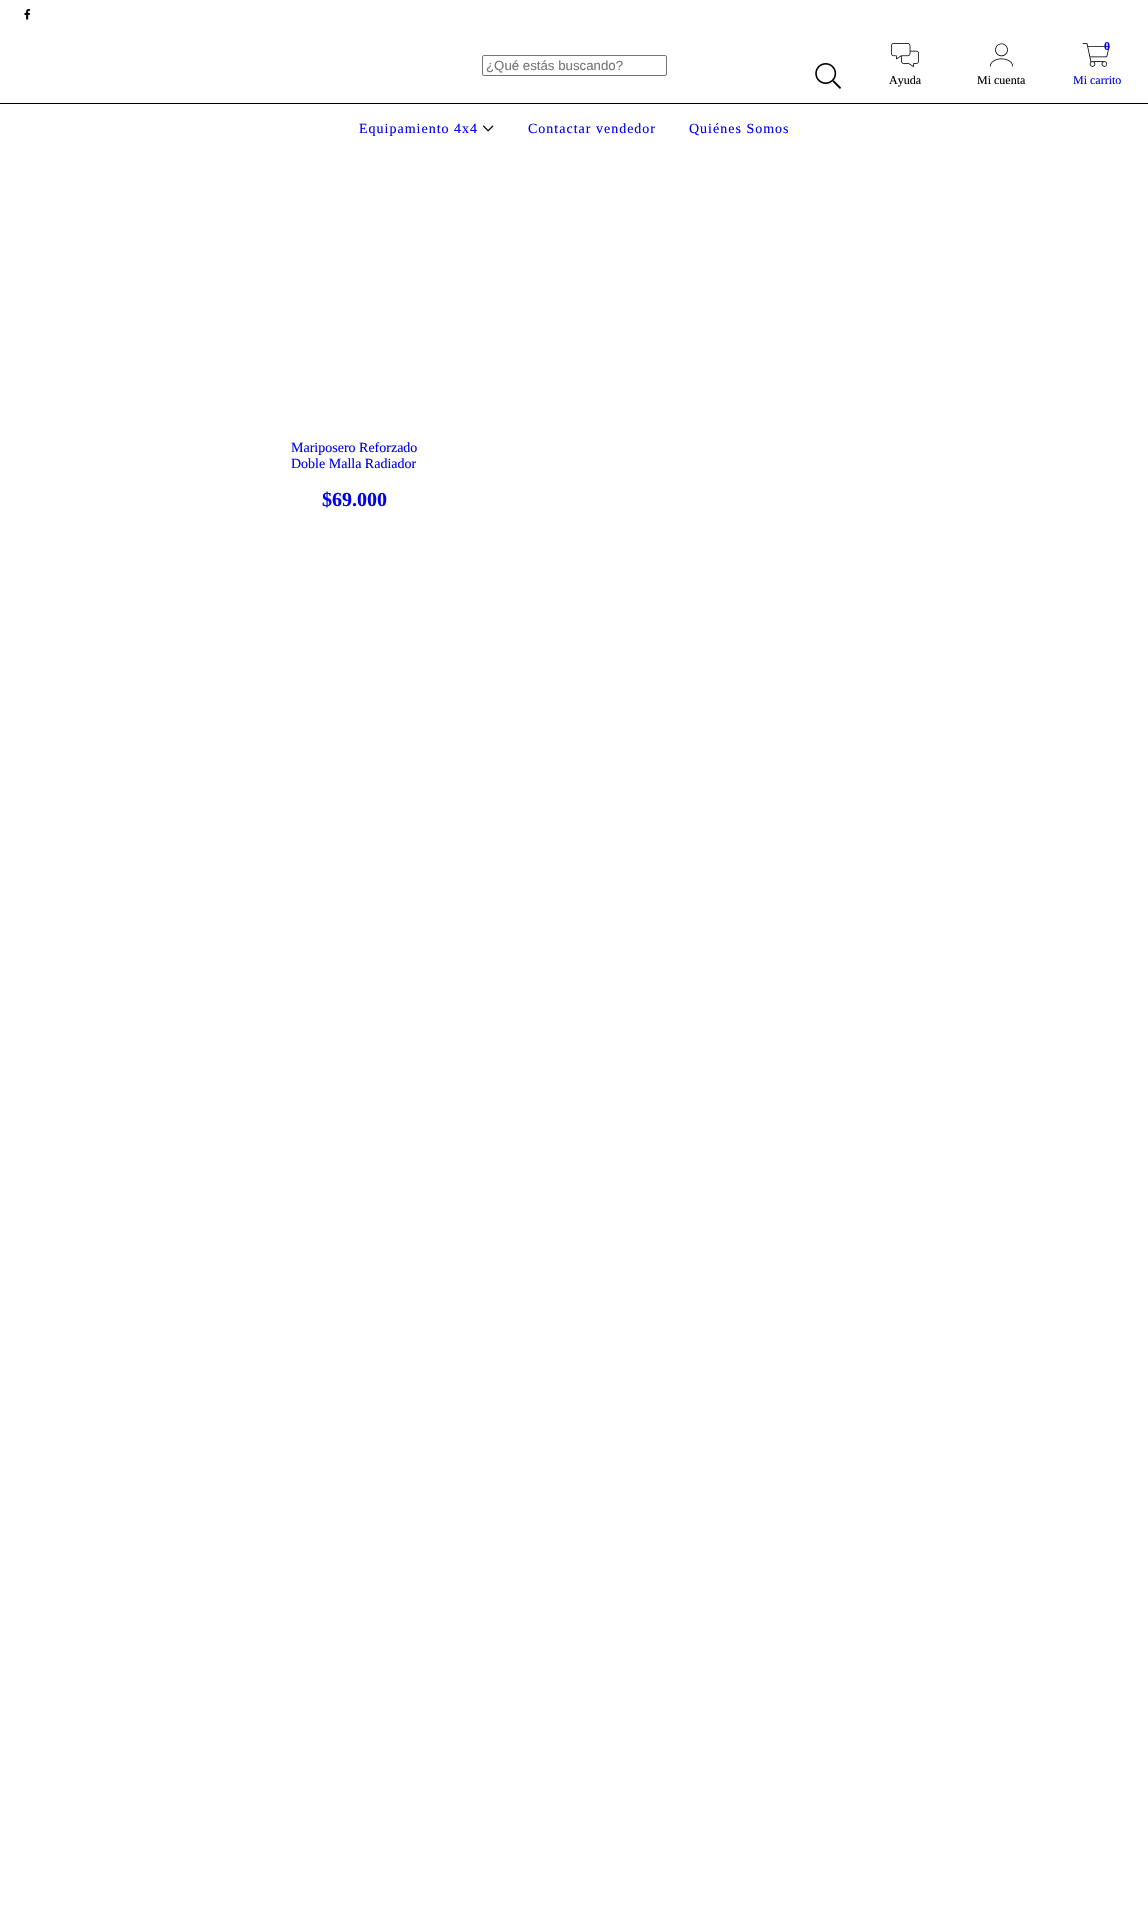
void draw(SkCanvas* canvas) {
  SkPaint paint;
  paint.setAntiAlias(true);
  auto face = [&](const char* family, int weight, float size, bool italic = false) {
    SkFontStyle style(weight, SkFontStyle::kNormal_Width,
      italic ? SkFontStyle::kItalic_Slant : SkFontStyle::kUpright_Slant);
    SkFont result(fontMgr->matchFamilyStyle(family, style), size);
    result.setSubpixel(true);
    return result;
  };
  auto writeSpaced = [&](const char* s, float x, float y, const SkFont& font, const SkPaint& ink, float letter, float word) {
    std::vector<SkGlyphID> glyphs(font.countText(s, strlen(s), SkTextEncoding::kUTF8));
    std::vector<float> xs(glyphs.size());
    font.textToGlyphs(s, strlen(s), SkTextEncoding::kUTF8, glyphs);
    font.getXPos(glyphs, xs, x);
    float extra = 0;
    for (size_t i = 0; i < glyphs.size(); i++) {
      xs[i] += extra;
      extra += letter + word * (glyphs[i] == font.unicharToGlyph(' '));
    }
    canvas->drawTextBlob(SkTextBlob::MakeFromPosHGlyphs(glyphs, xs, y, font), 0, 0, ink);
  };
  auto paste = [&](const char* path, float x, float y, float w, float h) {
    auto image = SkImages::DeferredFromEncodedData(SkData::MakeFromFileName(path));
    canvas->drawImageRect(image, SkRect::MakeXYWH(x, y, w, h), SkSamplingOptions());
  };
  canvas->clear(0xffffffff);
  paste("img/1.png", 24, 9, 7, 11);
  paint.setStroke(true);
  paint.setStrokeWidth(1);
  paint.setColor(0xff767676);
  canvas->drawRoundRect(SkRect::MakeXYWH(482.5f, 55.5f, 184, 20), 1.5f, 1.5f, paint);
  paste("img/2.png", 815, 63, 26, 26);
  paste("img/3.png", 891, 43, 28, 24);
  paste("img/4.png", 989, 43, 25, 24);
  paste("img/5.png", 1082, 43, 28, 24);
  paint.setStroke(false);
  paint.setColor(0xff000000);
  canvas->drawRect(SkRect::MakeXYWH(0, 103, 1148, 1), paint);
  paste("img/6.png", 482, 125, 12, 7);
  auto f0 = face("Liberation Sans", 400, 13.25f);
  paint.setColor(0xff757575);
  canvas->drawString("¿Qué estás buscando?", 486, 70, f0, paint);
  auto f1 = face("Liberation Serif", 400, 12);
  paint.setColor(0xff000000);
  canvas->drawString("Ayuda", 889, 84, f1, paint);
  canvas->drawString("Mi cuenta", 977, 84, f1, paint);
  auto f2 = face("Liberation Serif", 700, 12);
  paint.setColor(0xff0000ee);
  canvas->drawString("0", 1104, 50, f2, paint);
  canvas->drawString("Mi carrito", 1073, 84, f1, paint);
  auto f3 = face("Liberation Serif", 400, 14);
  {
    const struct { const char* s; float x, y; } items[] = {
      {"Equipamiento 4x4", 359, 133},
      {"Contactar vendedor", 528, 133},
      {"Quiénes Somos", 689, 133},
    };
    for (auto [s, x, y] : items) {
      writeSpaced(s, x, y, f3, paint, 1, 0);
    }
  }
  canvas->drawString("Mariposero Reforzado", 291, 452, f3, paint);
  canvas->drawString("Doble Malla Radiador", 291, 468, f3, paint);
  auto f4 = face("Liberation Serif", 700, 20);
  canvas->drawString("$69.000", 322, 506, f4, paint);
}
